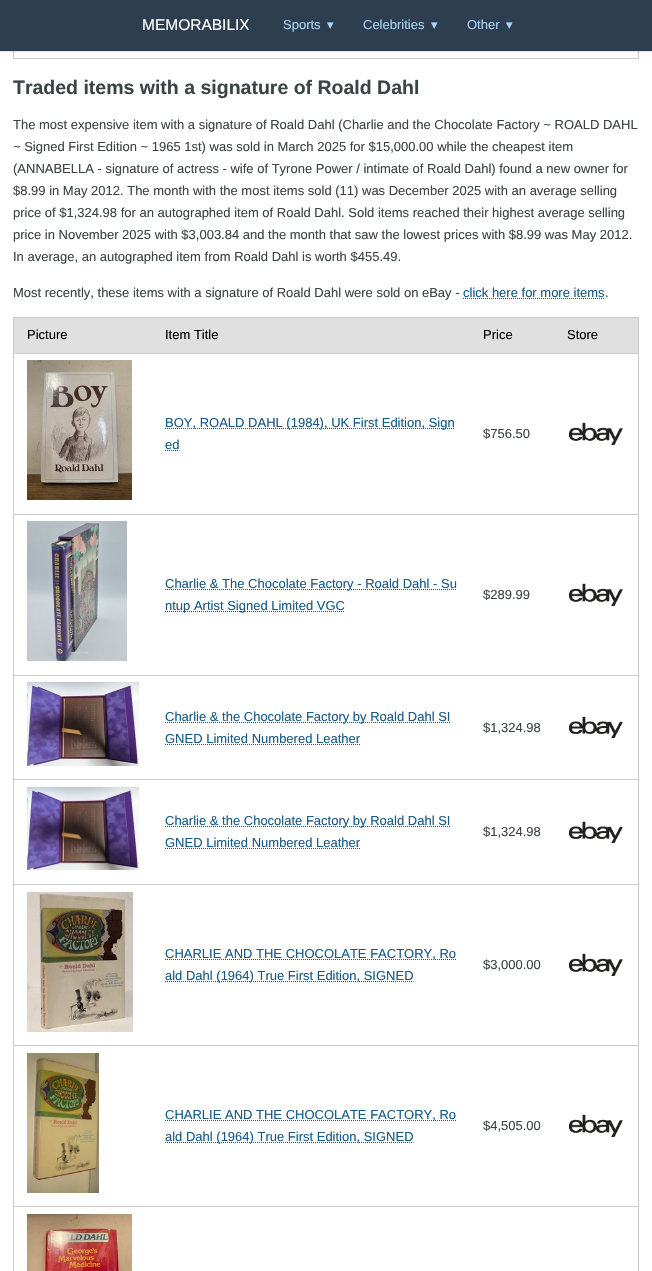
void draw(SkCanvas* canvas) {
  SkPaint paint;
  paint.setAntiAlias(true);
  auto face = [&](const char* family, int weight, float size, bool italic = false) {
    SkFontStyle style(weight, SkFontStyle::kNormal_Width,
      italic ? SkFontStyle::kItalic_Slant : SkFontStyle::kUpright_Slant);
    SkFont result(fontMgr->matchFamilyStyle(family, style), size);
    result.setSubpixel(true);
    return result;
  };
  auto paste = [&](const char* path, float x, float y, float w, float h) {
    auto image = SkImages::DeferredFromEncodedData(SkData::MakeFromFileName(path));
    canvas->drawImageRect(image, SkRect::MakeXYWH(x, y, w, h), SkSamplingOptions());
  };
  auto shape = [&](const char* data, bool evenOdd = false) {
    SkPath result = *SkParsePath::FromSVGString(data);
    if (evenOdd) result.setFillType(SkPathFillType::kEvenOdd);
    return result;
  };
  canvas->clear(0xffffffff);
  {
    const struct { float x, y, w, h; SkColor color; } items[] = {
      {638, 51, 1, 8, 0xffcbcbcb},
      {13, 58, 626, 1, 0xffcbcbcb},
      {13, 51, 1, 8, 0xffcbcbcb},
    };
    for (auto [x, y, w, h, color] : items) {
      paint.setColor(color);
      canvas->drawRect(SkRect::MakeXYWH(x, y, w, h), paint);
    }
  }
  paint.setColor(0x1a000000);
  paint.setMaskFilter(SkMaskFilter::MakeBlur(kNormal_SkBlurStyle, 0.5f));
  canvas->drawRect(SkRect::MakeXYWH(0, 1, 652, 51), paint);
  paint.setMaskFilter(nullptr);
  paint.setColor(0xff2d3e50);
  canvas->drawRect(SkRect::MakeXYWH(0, 0, 652, 51), paint);
  paint.setStroke(true);
  paint.setStrokeWidth(1);
  paint.setColor(0xff175a87);
  paint.setPathEffect(SkDashPathEffect::Make({{1, 1}}, 0));
  canvas->drawPath(shape("M463 298.5H605"), paint);
  paint.setPathEffect(nullptr);
  paint.setStroke(false);
  {
    const struct { float x, y, w, h; SkColor color; } items[] = {
      {13, 317, 626, 1, 0xffcbcbcb},
      {638, 317, 1, 954, 0xffcbcbcb},
      {13, 317, 1, 954, 0xffcbcbcb},
      {14, 318, 624, 35, 0xffe0e0e0},
      {13, 353, 626, 1, 0xffcbcbcb},
    };
    for (auto [x, y, w, h, color] : items) {
      paint.setColor(color);
      canvas->drawRect(SkRect::MakeXYWH(x, y, w, h), paint);
    }
  }
  paste("img/1.png", 27, 360, 105, 140);
  paint.setStroke(true);
  paint.setColor(0xff175a87);
  paint.setPathEffect(SkDashPathEffect::Make({{1, 1}}, 0));
  canvas->drawPath(shape("M165 428.5H454.5"), paint);
  paint.setPathEffect(nullptr);
  paint.setPathEffect(SkDashPathEffect::Make({{1, 1}}, 0));
  canvas->drawPath(shape("M165 450.5H179.5"), paint);
  paint.setPathEffect(nullptr);
  paint.setStroke(false);
  paint.setColor(0xffcbcbcb);
  canvas->drawRect(SkRect::MakeXYWH(13, 514, 626, 1), paint);
  paste("img/2.png", 569, 422, 54, 23);
  paste("img/3.png", 27, 521, 100, 140);
  paint.setStroke(true);
  paint.setColor(0xff175a87);
  paint.setPathEffect(SkDashPathEffect::Make({{1, 1}}, 0));
  canvas->drawPath(shape("M165 589.5H457"), paint);
  paint.setPathEffect(nullptr);
  paint.setPathEffect(SkDashPathEffect::Make({{1, 1}}, 0));
  canvas->drawPath(shape("M165 611.5H345"), paint);
  paint.setPathEffect(nullptr);
  paint.setStroke(false);
  paint.setColor(0xffcbcbcb);
  canvas->drawRect(SkRect::MakeXYWH(13, 675, 626, 1), paint);
  paste("img/2.png", 569, 583, 54, 23);
  paste("img/4.png", 27, 682, 112, 84);
  paint.setStroke(true);
  paint.setColor(0xff175a87);
  paint.setPathEffect(SkDashPathEffect::Make({{1, 1}}, 0));
  canvas->drawPath(shape("M165 722.5H450.5"), paint);
  paint.setPathEffect(nullptr);
  paint.setPathEffect(SkDashPathEffect::Make({{1, 1}}, 0));
  canvas->drawPath(shape("M165 744.5H360"), paint);
  paint.setPathEffect(nullptr);
  paint.setStroke(false);
  paint.setColor(0xffcbcbcb);
  canvas->drawRect(SkRect::MakeXYWH(13, 779, 626, 1), paint);
  paste("img/5.png", 569, 716, 54, 22);
  paste("img/6.png", 27, 787, 112, 83);
  paint.setStroke(true);
  paint.setColor(0xff175a87);
  paint.setPathEffect(SkDashPathEffect::Make({{1, 1}}, 0));
  canvas->drawPath(shape("M165 826.5H450.5"), paint);
  paint.setPathEffect(nullptr);
  paint.setPathEffect(SkDashPathEffect::Make({{1, 1}}, 0));
  canvas->drawPath(shape("M165 848.5H360"), paint);
  paint.setPathEffect(nullptr);
  paint.setStroke(false);
  paint.setColor(0xffcbcbcb);
  canvas->drawRect(SkRect::MakeXYWH(13, 884, 626, 1), paint);
  paste("img/5.png", 569, 821, 54, 22);
  paste("img/7.png", 27, 892, 106, 140);
  paint.setStroke(true);
  paint.setColor(0xff175a87);
  paint.setPathEffect(SkDashPathEffect::Make({{1, 1}}, 0));
  canvas->drawPath(shape("M165 959.5H456"), paint);
  paint.setPathEffect(nullptr);
  paint.setPathEffect(SkDashPathEffect::Make({{1, 1}}, 0));
  canvas->drawPath(shape("M165 981.5H413.5"), paint);
  paint.setPathEffect(nullptr);
  paint.setStroke(false);
  paint.setColor(0xffcbcbcb);
  canvas->drawRect(SkRect::MakeXYWH(13, 1045, 626, 1), paint);
  paste("img/2.png", 569, 953, 54, 23);
  paste("img/8.png", 27, 1053, 72, 140);
  paint.setStroke(true);
  paint.setColor(0xff175a87);
  paint.setPathEffect(SkDashPathEffect::Make({{1, 1}}, 0));
  canvas->drawPath(shape("M165 1120.5H456"), paint);
  paint.setPathEffect(nullptr);
  paint.setPathEffect(SkDashPathEffect::Make({{1, 1}}, 0));
  canvas->drawPath(shape("M165 1142.5H413.5"), paint);
  paint.setPathEffect(nullptr);
  paint.setStroke(false);
  paint.setColor(0xffcbcbcb);
  canvas->drawRect(SkRect::MakeXYWH(13, 1206, 626, 1), paint);
  paste("img/9.png", 569, 1114, 54, 23);
  paste("img/10.png", 27, 1214, 105, 57);
  auto f0 = face("Liberation Sans", 400, 15.5f);
  paint.setColor(0xffffffff);
  canvas->drawString("MEMORABILIX", 142, 30, f0, paint);
  auto f1 = face("Liberation Sans", 400, 13);
  paint.setColor(0xffa9d6f4);
  canvas->drawString("Sports", 283, 29, f1, paint);
  auto f2 = face("DejaVu Sans", 400, 13);
  canvas->drawString("▾", 327, 29, f2, paint);
  canvas->drawString("Celebrities", 363, 29, f1, paint);
  canvas->drawString("▾", 431, 29, f2, paint);
  canvas->drawString("Other", 467, 29, f1, paint);
  canvas->drawString("▾", 506, 29, f2, paint);
  auto f3 = face("Liberation Sans", 700, 19.5f);
  paint.setColor(0xff3c4344);
  canvas->drawString("Traded items with a signature of Roald Dahl", 13, 94, f3, paint);
  {
    const struct { const char* s; float x, y; } items[] = {
      {"The most expensive item with a signature of Roald Dahl (Charlie and the Chocolate Factory ~ ROALD DAHL", 13, 129},
      {"~ Signed First Edition ~ 1965 1st) was sold in March 2025 for $15,000.00 while the cheapest item", 13, 151},
      {"(ANNABELLA - signature of actress - wife of Tyrone Power / intimate of Roald Dahl) found a new owner for", 13, 173},
      {"$8.99 in May 2012. The month with the most items sold (11) was December 2025 with an average selling", 13, 195},
      {"price of $1,324.98 for an autographed item of Roald Dahl. Sold items reached their highest average selling", 13, 217},
      {"price in November 2025 with $3,003.84 and the month that saw the lowest prices with $8.99 was May 2012.", 13, 239},
      {"In average, an autographed item from Roald Dahl is worth $455.49.", 13, 261},
      {"Most recently, these items with a signature of Roald Dahl were sold on eBay -", 13, 297},
    };
    for (auto [s, x, y] : items) {
      canvas->drawString(s, x, y, f1, paint);
    }
  }
  paint.setColor(0xff175a87);
  canvas->drawString("click here for more items", 463, 297, f1, paint);
  paint.setColor(0xff3c4344);
  canvas->drawString(".", 605, 297, f1, paint);
  paint.setColor(0xff000000);
  {
    const struct { const char* s; float x, y; } items[] = {
      {"Picture", 27, 339},
      {"Item Title", 165, 339},
      {"Price", 483, 339},
      {"Store", 567, 339},
    };
    for (auto [s, x, y] : items) {
      canvas->drawString(s, x, y, f1, paint);
    }
  }
  paint.setColor(0xff175a87);
  canvas->drawString("BOY, ROALD DAHL (1984), UK First Edition, Sign", 165, 427, f1, paint);
  canvas->drawString("ed", 165, 449, f1, paint);
  paint.setColor(0xff3c4344);
  canvas->drawString("$756.50", 483, 438, f1, paint);
  paint.setColor(0xff175a87);
  canvas->drawString("Charlie & The Chocolate Factory - Roald Dahl - Su", 165, 588, f1, paint);
  canvas->drawString("ntup Artist Signed Limited VGC", 165, 610, f1, paint);
  paint.setColor(0xff3c4344);
  canvas->drawString("$289.99", 483, 599, f1, paint);
  paint.setColor(0xff175a87);
  canvas->drawString("Charlie & the Chocolate Factory by Roald Dahl SI", 165, 721, f1, paint);
  canvas->drawString("GNED Limited Numbered Leather", 165, 743, f1, paint);
  paint.setColor(0xff3c4344);
  canvas->drawString("$1,324.98", 483, 732, f1, paint);
  paint.setColor(0xff175a87);
  canvas->drawString("Charlie & the Chocolate Factory by Roald Dahl SI", 165, 825, f1, paint);
  canvas->drawString("GNED Limited Numbered Leather", 165, 847, f1, paint);
  paint.setColor(0xff3c4344);
  canvas->drawString("$1,324.98", 483, 836, f1, paint);
  paint.setColor(0xff175a87);
  canvas->drawString("CHARLIE AND THE CHOCOLATE FACTORY, Ro", 165, 958, f1, paint);
  canvas->drawString("ald Dahl (1964) True First Edition, SIGNED", 165, 980, f1, paint);
  paint.setColor(0xff3c4344);
  canvas->drawString("$3,000.00", 483, 969, f1, paint);
  paint.setColor(0xff175a87);
  canvas->drawString("CHARLIE AND THE CHOCOLATE FACTORY, Ro", 165, 1119, f1, paint);
  canvas->drawString("ald Dahl (1964) True First Edition, SIGNED", 165, 1141, f1, paint);
  paint.setColor(0xff3c4344);
  canvas->drawString("$4,505.00", 483, 1130, f1, paint);
}
